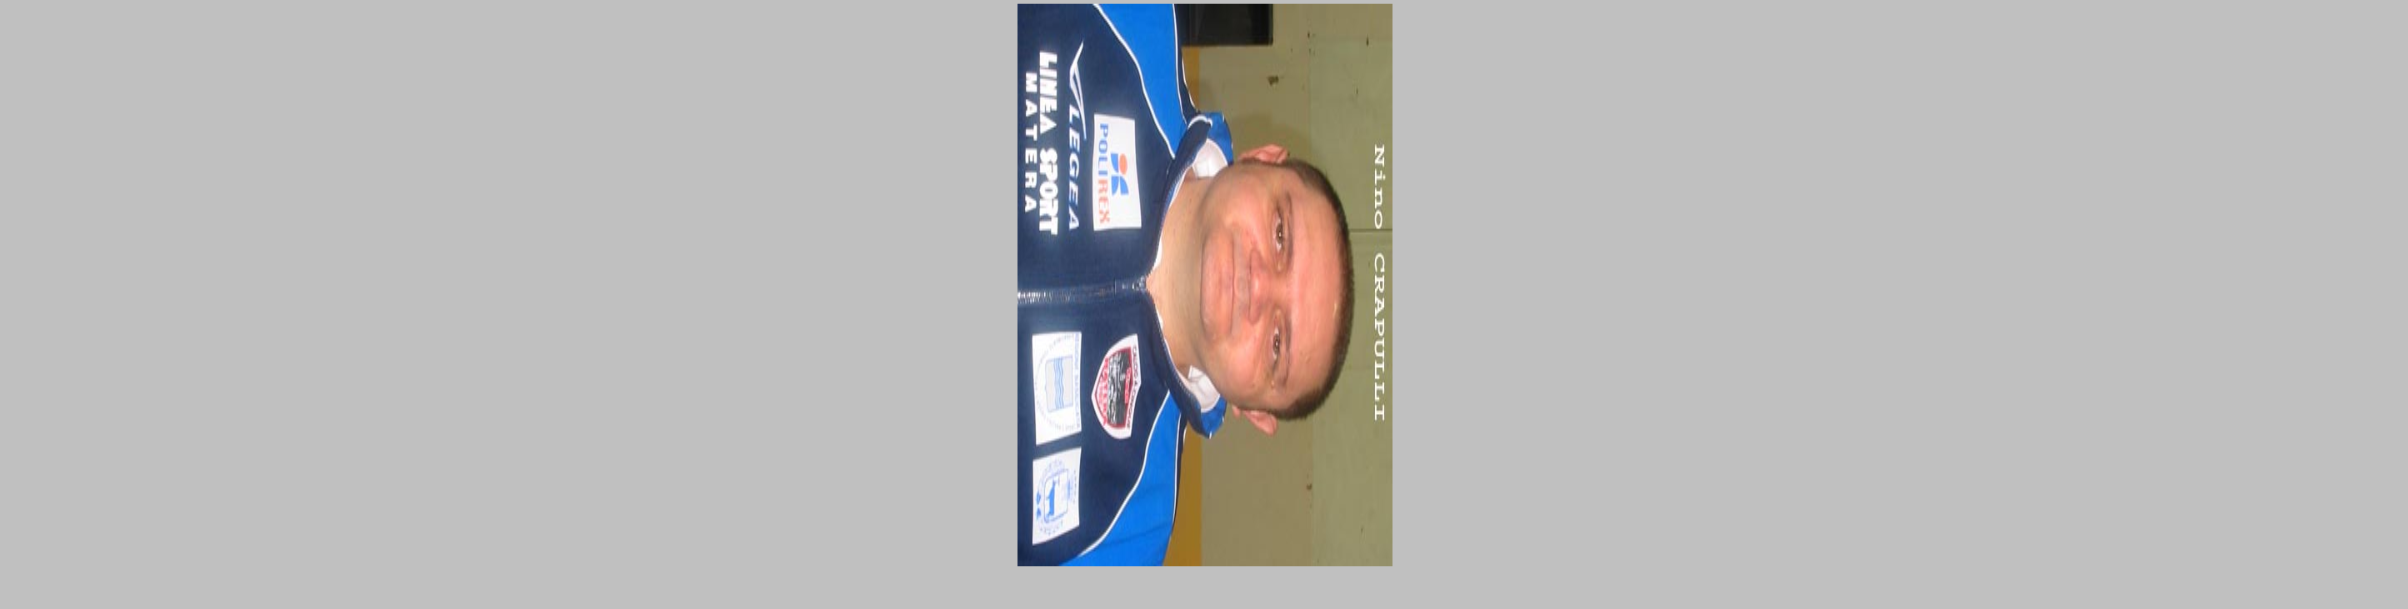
void draw(SkCanvas* canvas) {
  SkPaint paint;
  paint.setAntiAlias(true);
  auto paste = [&](const char* path, float x, float y, float w, float h) {
    auto image = SkImages::DeferredFromEncodedData(SkData::MakeFromFileName(path));
    canvas->drawImageRect(image, SkRect::MakeXYWH(x, y, w, h), SkSamplingOptions());
  };
  canvas->clear(0xffc0c0c0);
  paste("img/1.png", 1017, 3, 376, 564);
}
